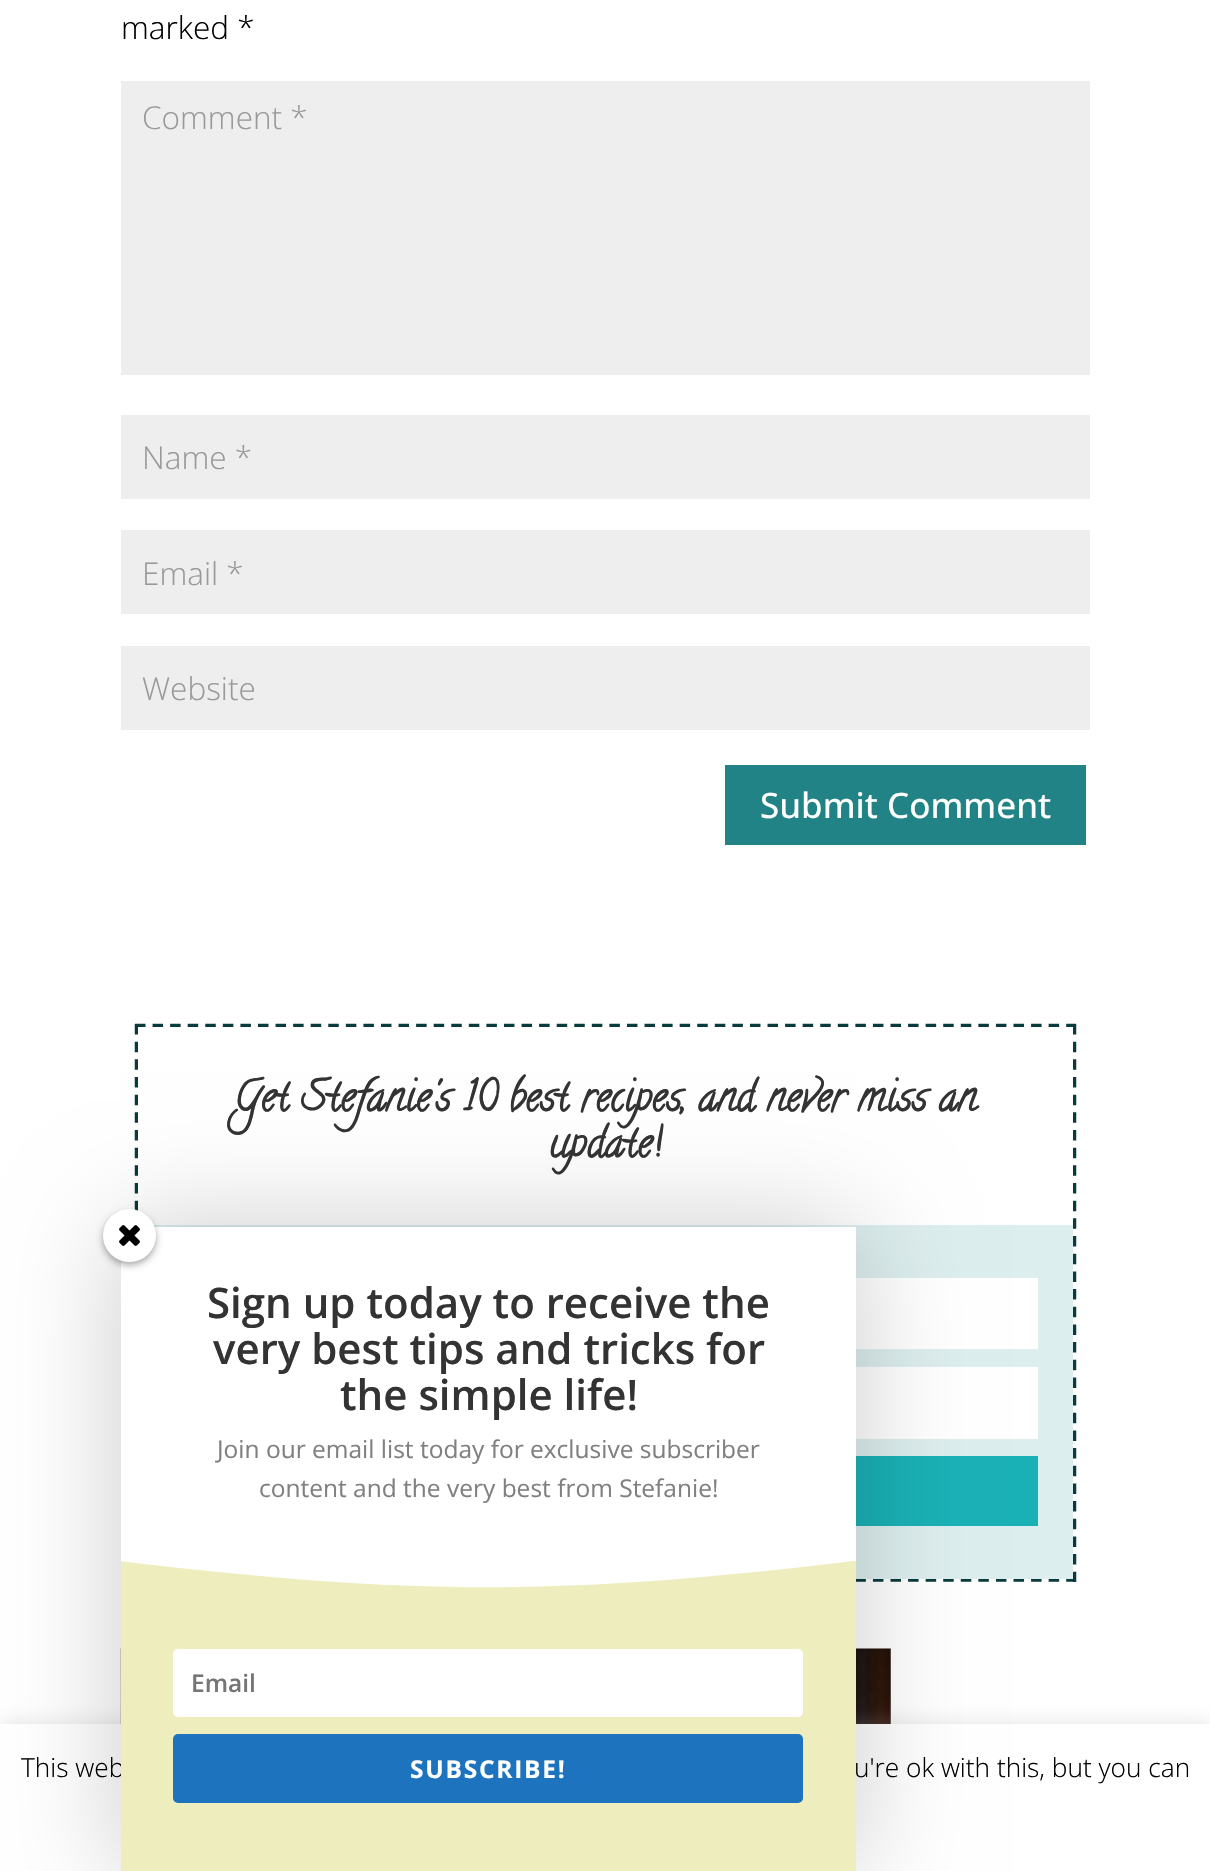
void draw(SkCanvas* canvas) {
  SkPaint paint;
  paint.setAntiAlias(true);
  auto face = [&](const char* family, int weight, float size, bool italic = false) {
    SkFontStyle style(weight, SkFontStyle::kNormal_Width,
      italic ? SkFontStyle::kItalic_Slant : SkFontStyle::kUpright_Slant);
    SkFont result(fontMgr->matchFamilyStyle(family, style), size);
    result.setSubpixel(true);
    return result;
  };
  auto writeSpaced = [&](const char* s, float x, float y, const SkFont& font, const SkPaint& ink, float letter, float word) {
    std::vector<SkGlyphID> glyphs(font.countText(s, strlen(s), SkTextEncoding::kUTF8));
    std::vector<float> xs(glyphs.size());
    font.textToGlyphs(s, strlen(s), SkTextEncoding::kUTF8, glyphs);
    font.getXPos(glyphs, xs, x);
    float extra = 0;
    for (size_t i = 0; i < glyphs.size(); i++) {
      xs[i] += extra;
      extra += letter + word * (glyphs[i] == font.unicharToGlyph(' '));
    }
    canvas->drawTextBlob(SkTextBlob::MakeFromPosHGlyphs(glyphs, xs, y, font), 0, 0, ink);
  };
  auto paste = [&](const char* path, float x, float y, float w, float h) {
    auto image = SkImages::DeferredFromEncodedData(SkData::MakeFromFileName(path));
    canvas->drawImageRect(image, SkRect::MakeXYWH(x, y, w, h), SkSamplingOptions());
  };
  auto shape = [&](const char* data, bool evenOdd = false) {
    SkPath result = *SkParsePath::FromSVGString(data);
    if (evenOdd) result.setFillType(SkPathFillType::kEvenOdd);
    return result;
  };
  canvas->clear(0xffffffff);
  {
    const struct { float x, y, w, h; SkColor color; } items[] = {
      {121, 81, 969, 294, 0xffeeeeee},
      {121, 415, 969, 84, 0xffeeeeee},
      {121, 530, 969, 84, 0xffeeeeee},
      {121, 646, 969, 84, 0xffeeeeee},
      {725, 765, 361, 80, 0xff218386},
    };
    for (auto [x, y, w, h, color] : items) {
      paint.setColor(color);
      canvas->drawRect(SkRect::MakeXYWH(x, y, w, h), paint);
    }
  }
  paint.setStroke(true);
  paint.setStrokeWidth(3.5f);
  paint.setColor(0xff093a3c);
  paint.setPathEffect(SkDashPathEffect::Make({{10.5f, 7.07f}}, 0));
  canvas->drawPath(shape("M135 1025.5H1076"), paint);
  paint.setPathEffect(nullptr);
  paint.setPathEffect(SkDashPathEffect::Make({{10.5f, 7.17f}}, 0));
  canvas->drawPath(shape("M1074.5 1024V1582"), paint);
  paint.setPathEffect(nullptr);
  paint.setPathEffect(SkDashPathEffect::Make({{10.5f, 7.07f}}, 0));
  canvas->drawPath(shape("M135 1580H1076"), paint);
  paint.setPathEffect(nullptr);
  paint.setPathEffect(SkDashPathEffect::Make({{10.5f, 7.17f}}, 0));
  canvas->drawPath(shape("M136.5 1024V1582"), paint);
  paint.setPathEffect(nullptr);
  paint.setStroke(false);
  {
    const struct { float x, y, w, h; SkColor color; } items[] = {
      {138, 1027, 935, 198, 0xffffffff},
      {153, 1225, 920, 354, 0xffddeeee},
      {856, 1278, 182, 71, 0xffffffff},
      {856, 1367, 182, 72, 0xffffffff},
      {856, 1456, 182, 70, 0xff1ab1b6},
    };
    for (auto [x, y, w, h, color] : items) {
      paint.setColor(color);
      canvas->drawRect(SkRect::MakeXYWH(x, y, w, h), paint);
    }
  }
  paste("img/1.png", 120, 1648, 771, 76);
  paint.setColor(0x4dacabab);
  paint.setMaskFilter(SkMaskFilter::MakeBlur(kNormal_SkBlurStyle, 9));
  canvas->drawRect(SkRect::MakeXYWH(0, 1722, 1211, 149), paint);
  paint.setMaskFilter(nullptr);
  paint.setColor(0xffffffff);
  canvas->drawRect(SkRect::MakeXYWH(0, 1724, 1210, 147), paint);
  paint.setColor(0x33000000);
  paint.setMaskFilter(SkMaskFilter::MakeBlur(kNormal_SkBlurStyle, 52.5f));
  canvas->drawRect(SkRect::MakeXYWH(121, 1227, 735, 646), paint);
  paint.setMaskFilter(nullptr);
  paint.setColor(0xffffffff);
  canvas->drawRect(SkRect::MakeXYWH(121, 1227, 735, 334), paint);
  paint.setColor(0x57000000);
  paint.setMaskFilter(SkMaskFilter::MakeBlur(kNormal_SkBlurStyle, 3.5f));
  canvas->drawRoundRect(SkRect::MakeXYWH(103, 1213, 53, 52), 26, 26, paint);
  paint.setMaskFilter(nullptr);
  paint.setColor(0xffffffff);
  canvas->drawCircle(129.5f, 1235.5f, 26.5f, paint);
  paste("img/2.png", 119, 1225, 21, 21);
  auto f0 = face("Open Sans", 300, 31.5f);
  paint.setColor(0xff000000);
  canvas->drawString("marked *", 121, 39, f0, paint);
  paint.setColor(0xff999999);
  {
    const struct { const char* s; float x, y; } items[] = {
      {"Comment *", 142, 129},
      {"Name *", 142, 469},
      {"Email *", 142, 585},
      {"Website", 142, 700},
    };
    for (auto [s, x, y] : items) {
      canvas->drawString(s, x, y, f0, paint);
    }
  }
  auto f1 = face("Open Sans", 500, 35);
  paint.setColor(0xfffdfefe);
  canvas->drawString("Submit Comment", 760, 818, f1, paint);
  auto f2 = face("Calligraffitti", 700, 42);
  paint.setColor(0xff333333);
  canvas->drawString("Get Stefanie's 10 best recipes, and never miss an", 234, 1110, f2, paint);
  canvas->drawString("update!", 549, 1156, f2, paint);
  auto f3 = face("Open Sans", 600, 42);
  {
    const struct { const char* s; float x, y; } items[] = {
      {"Sign up today to receive the", 207, 1318},
      {"very best tips and tricks for", 213, 1364},
      {"the simple life!", 340, 1410},
    };
    for (auto [s, x, y] : items) {
      canvas->drawString(s, x, y, f3, paint);
    }
  }
  auto f4 = face("Open Sans", 400, 24.5f);
  paint.setColor(0xff808080);
  canvas->drawString("Join our email list today for exclusive subscriber", 217, 1458, f4, paint);
  canvas->drawString("content and the very best from Stefanie!", 259, 1497, f4, paint);
  auto f5 = face("Open Sans", 300, 26.25f);
  paint.setColor(0xff000000);
  canvas->drawString("This web", 21, 1777, f5, paint);
  paint.setColor(0xffededbd);
  canvas->drawRect(SkRect::MakeXYWH(121, 1561, 735, 310), paint);
  paint.setColor(0xffffffff);
  canvas->drawPath(shape("M119 1561C413 1596 560 1596 854 1561Z"), paint);
  paint.setColor(0xff1e73be);
  canvas->drawRoundRect(SkRect::MakeXYWH(173, 1734, 630, 69), 5, 5, paint);
  auto f6 = face("Open Sans", 700, 24.5f);
  paint.setColor(0xfffdfefe);
  writeSpaced("SUBSCRIBE!", 410, 1778, f6, paint, 1.75f, 0);
  paint.setColor(0xffffffff);
  canvas->drawRoundRect(SkRect::MakeXYWH(173, 1649, 630, 68), 5, 5, paint);
  auto f7 = face("Open Sans", 600, 24.5f);
  paint.setColor(0xff757575);
  canvas->drawString("Email", 191, 1692, f7, paint);
  paint.setColor(0xff000000);
  canvas->drawString("u're ok with this, but you can", 854, 1777, f5, paint);
}
